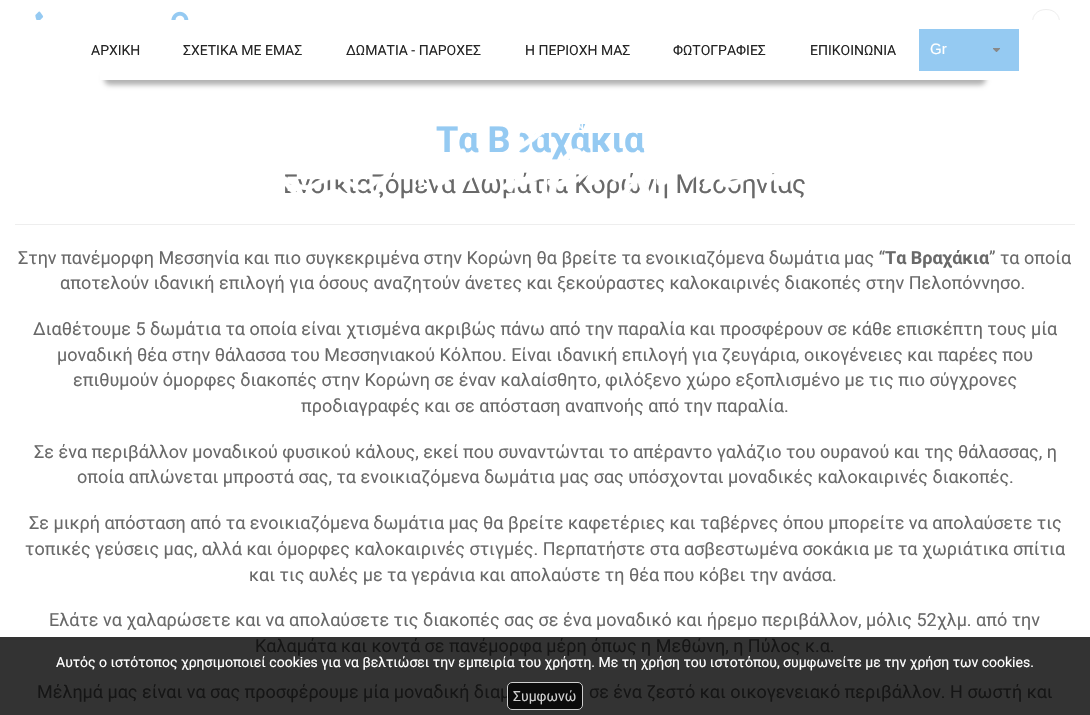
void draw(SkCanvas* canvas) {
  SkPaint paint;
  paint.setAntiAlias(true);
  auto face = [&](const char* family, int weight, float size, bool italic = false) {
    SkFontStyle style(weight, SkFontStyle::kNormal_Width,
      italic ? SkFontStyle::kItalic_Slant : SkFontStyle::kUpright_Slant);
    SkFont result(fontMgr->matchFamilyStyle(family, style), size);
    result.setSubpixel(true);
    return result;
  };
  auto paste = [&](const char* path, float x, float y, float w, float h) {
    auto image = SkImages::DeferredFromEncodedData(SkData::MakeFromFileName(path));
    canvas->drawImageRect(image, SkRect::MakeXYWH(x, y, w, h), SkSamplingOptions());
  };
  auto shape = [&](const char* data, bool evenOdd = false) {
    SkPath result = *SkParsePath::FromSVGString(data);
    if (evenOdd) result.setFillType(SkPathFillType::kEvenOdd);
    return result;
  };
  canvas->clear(0xffffffff);
  paint.setColor(0xff333333);
  canvas->drawRect(SkRect::MakeXYWH(0, 637, 1090, 78), paint);
  paste("img/1.png", 35, 11, 9, 9);
  paste("img/2.png", 171, 11, 18, 9);
  paint.setStroke(true);
  paint.setStrokeWidth(1);
  paint.setColor(0xffeeeeee);
  canvas->drawPath(shape("M1046 9.5C1064 9.5 1064 34.5 1046 34.5C1028 34.5 1028 9.5 1046 9.5Z"), paint);
  paint.setStroke(false);
  paint.setColor(0x4d000000);
  paint.setMaskFilter(SkMaskFilter::MakeBlur(kNormal_SkBlurStyle, 2.5f));
  canvas->drawRoundRect(SkRect::MakeXYWH(104, 73, 882, 12), 6, 6, paint);
  paint.setMaskFilter(nullptr);
  paint.setColor(0xffffffff);
  canvas->drawRect(SkRect::MakeXYWH(100, 20, 960, 60), paint);
  paint.setColor(0xff95caf2);
  canvas->drawRect(SkRect::MakeXYWH(919, 29, 100, 42), paint);
  paste("img/4.png", 993, 48, 7, 4);
  paint.setColor(0xffeeeeee);
  canvas->drawRect(SkRect::MakeXYWH(15, 224, 1060, 1), paint);
  auto f0 = face("Roboto", 400, 14);
  paint.setColor(0xff252525);
  {
    const struct { const char* s; float x, y; } items[] = {
      {"ΑΡΧΙΚΗ", 91, 55},
      {"ΣΧΕΤΙΚΑ ΜΕ ΕΜΑΣ", 183, 55},
      {"ΔΩΜΑΤΙΑ - ΠΑΡΟΧΕΣ", 346, 55},
      {"Η ΠΕΡΙΟΧΗ ΜΑΣ", 525, 55},
      {"ΦΩΤΟΓΡΑΦΙΕΣ", 673, 55},
      {"ΕΠΙΚΟΙΝΩΝΙΑ", 810, 55},
    };
    for (auto [s, x, y] : items) {
      canvas->drawString(s, x, y, f0, paint);
    }
  }
  auto f1 = face("Liberation Sans", 400, 15);
  paint.setColor(0xffffffff);
  canvas->drawString("Gr", 930, 54, f1, paint);
  auto f2 = face("Roboto", 700, 36);
  paint.setColor(0xff95caf2);
  canvas->drawString("Τα Βραχάκια", 436, 152, f2, paint);
  auto f3 = face("Roboto", 400, 26);
  paint.setColor(0xff696969);
  canvas->drawString("Ενοικιαζόμενα Δωμάτια Κορώνη Μεσσηνίας", 283, 193, f3, paint);
  paste("img/3.png", 285, 123, 520, 71);
  auto f4 = face("Roboto", 400, 18);
  canvas->drawString("Στην πανέμορφη Μεσσηνία και πιο συγκεκριμένα στην Κορώνη θα βρείτε τα ενοικιαζόμενα δωμάτια μας “", 18, 264, f4, paint);
  auto f5 = face("Roboto", 700, 18);
  canvas->drawString("Τα Βραχάκια", 885, 264, f5, paint);
  {
    const struct { const char* s; float x, y; } items[] = {
      {"” τα οποία", 989, 264},
      {"αποτελούν ιδανική επιλογή για όσους αναζητούν άνετες και ξεκούραστες καλοκαιρινές διακοπές στην Πελοπόννησο.", 60, 289},
      {"Διαθέτουμε 5 δωμάτια τα οποία είναι χτισμένα ακριβώς πάνω από την παραλία και προσφέρουν σε κάθε επισκέπτη τους μία", 33, 335},
      {"μοναδική θέα στην θάλασσα του Μεσσηνιακού Κόλπου. Είναι ιδανική επιλογή για ζευγάρια, οικογένειες και παρέες που", 57, 361},
      {"επιθυμούν όμορφες διακοπές στην Κορώνη σε έναν καλαίσθητο, φιλόξενο χώρο εξοπλισμένο με τις πιο σύγχρονες", 73, 386},
      {"προδιαγραφές και σε απόσταση αναπνοής από την παραλία.", 301, 412},
      {"Σε ένα περιβάλλον μοναδικού φυσικού κάλους, εκεί που συναντώνται το απέραντο γαλάζιο του ουρανού και της θάλασσας, η", 34, 458},
      {"οποία απλώνεται μπροστά σας, τα ενοικιαζόμενα δωμάτια μας σας υπόσχονται μοναδικές καλοκαιρινές διακοπές.", 77, 483},
      {"Σε μικρή απόσταση από τα ενοικιαζόμενα δωμάτια μας θα βρείτε καφετέριες και ταβέρνες όπου μπορείτε να απολαύσετε τις", 29, 529},
      {"τοπικές γεύσεις μας, αλλά και όμορφες καλοκαιρινές στιγμές. Περπατήστε στα ασβεστωμένα σοκάκια με τα χωριάτικα σπίτια", 25, 555},
      {"και τις αυλές με τα γεράνια και απολαύστε τη θέα που κόβει την ανάσα.", 249, 581},
      {"Ελάτε να χαλαρώσετε και να απολαύσετε τις διακοπές σας σε ένα μοναδικό και ήρεμο περιβάλλον, μόλις 52χλμ. από την", 49, 626},
    };
    for (auto [s, x, y] : items) {
      canvas->drawString(s, x, y, f4, paint);
    }
  }
  paint.setColor(0xff151515);
  {
    const struct { const char* s; float x, y; } items[] = {
      {"Καλαμάτα και κοντά σε πανέμορφα μέρη όπως η Μεθώνη, η Πύλος κ.α.", 255, 652},
      {"Μέλημά μας είναι να σας προσφέρουμε μία μοναδική διαμ", 37, 698},
      {"σε ένα ζεστό και οικογενειακό περιβάλλον. Η σωστή και", 589, 698},
    };
    for (auto [s, x, y] : items) {
      canvas->drawString(s, x, y, f4, paint);
    }
  }
  paint.setColor(0xffffffff);
  canvas->drawString("Αυτός ο ιστότοπος χρησιμοποιεί cookies για να βελτιώσει την εμπειρία του χρήστη. Με τη χρήση του ιστοτόπου, συμφωνείτε με την χρήση των cookies.", 56, 667, f0, paint);
  paint.setColor(0xcc000000);
  canvas->drawRoundRect(SkRect::MakeXYWH(507, 682, 76, 28), 5, 5, paint);
  paint.setStroke(true);
  paint.setColor(0xccffffff);
  canvas->drawRoundRect(SkRect::MakeXYWH(507.5f, 682.5f, 75, 27), 4.5f, 4.5f, paint);
  paint.setStroke(false);
  paint.setColor(0xffcecece);
  canvas->drawString("Συμφωνώ", 513, 701, f0, paint);
}
